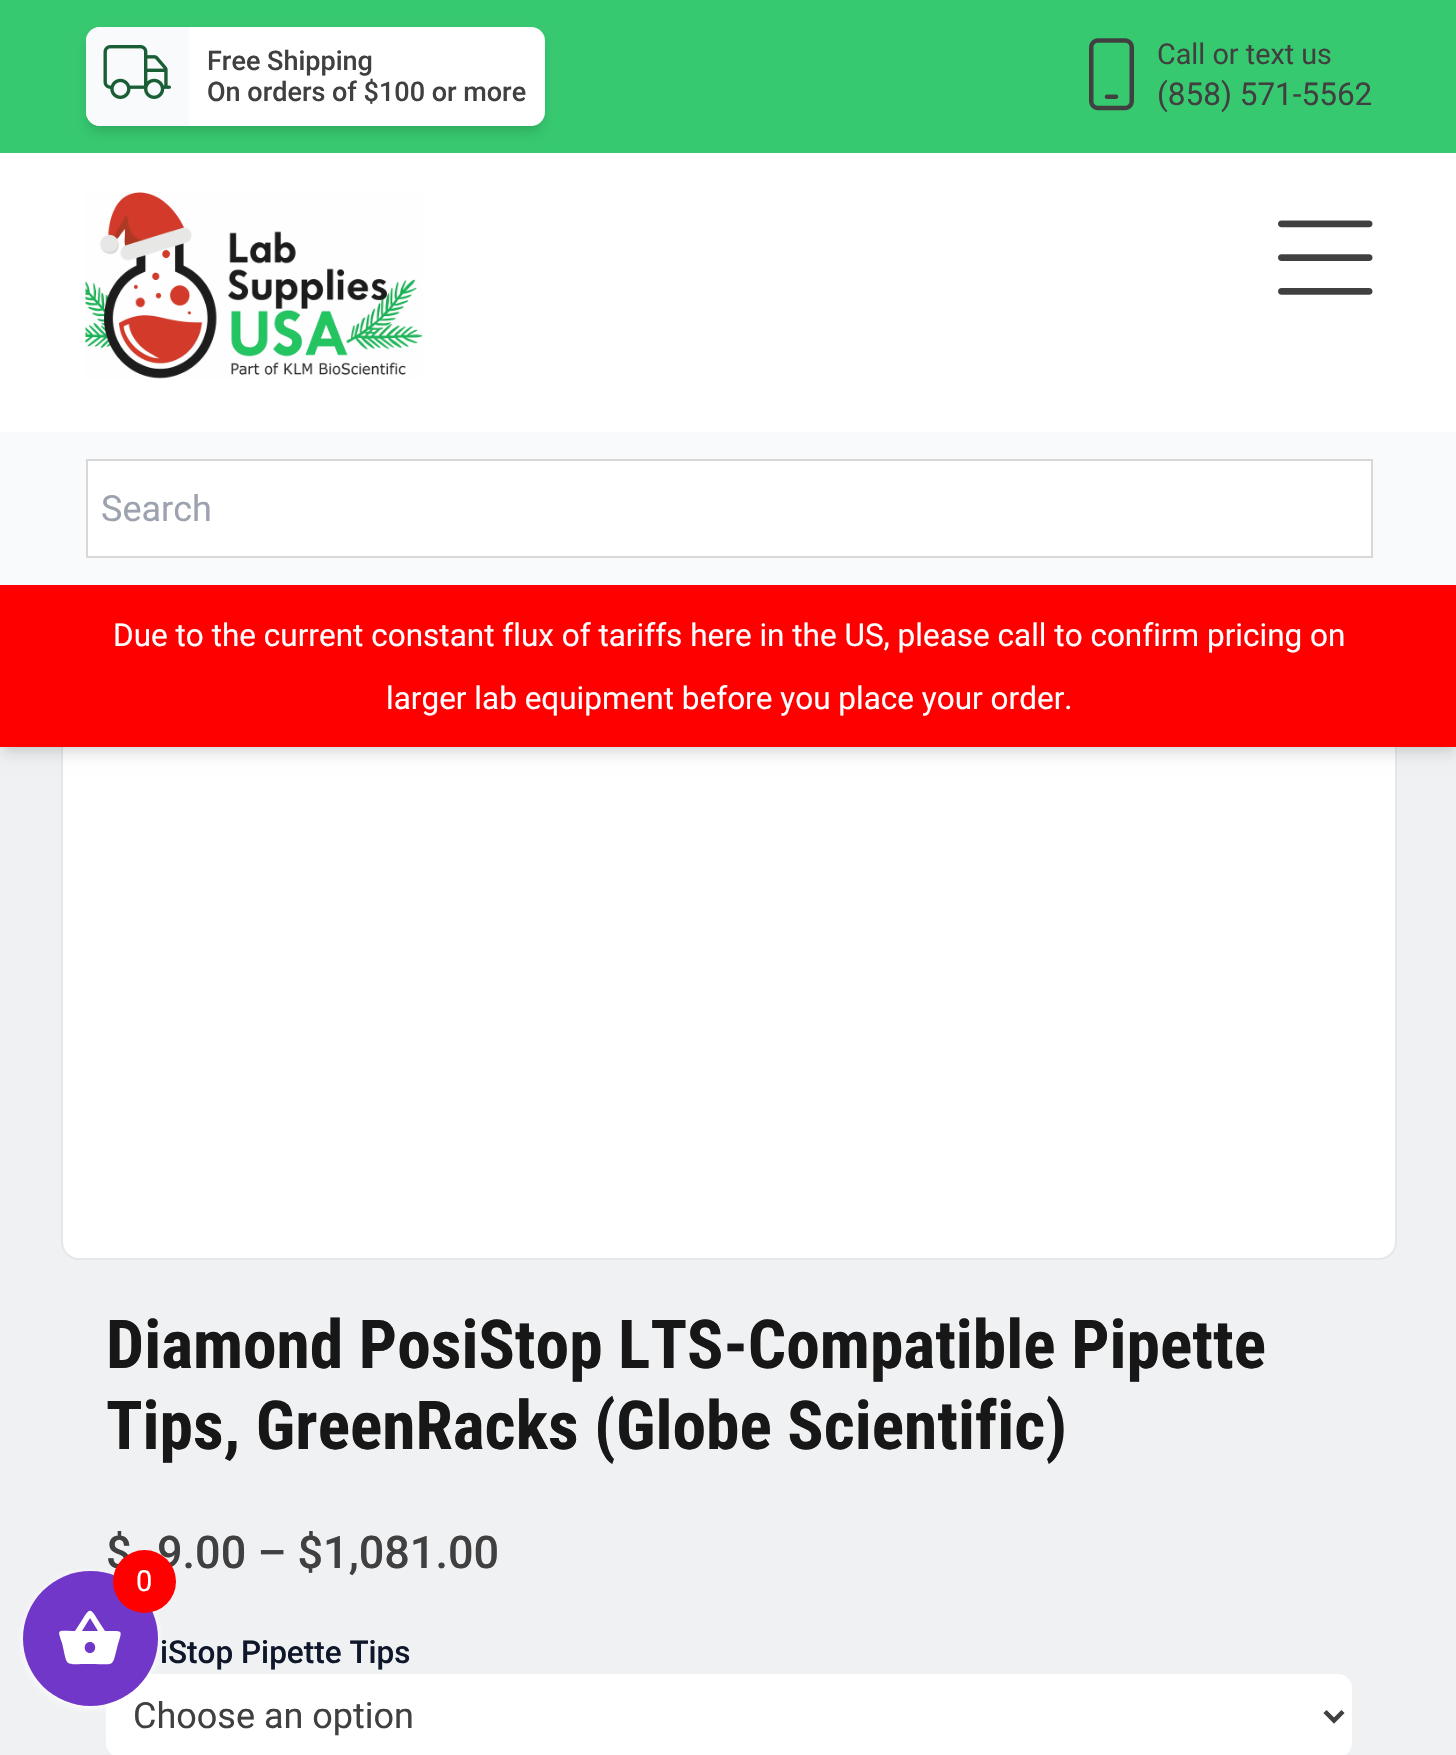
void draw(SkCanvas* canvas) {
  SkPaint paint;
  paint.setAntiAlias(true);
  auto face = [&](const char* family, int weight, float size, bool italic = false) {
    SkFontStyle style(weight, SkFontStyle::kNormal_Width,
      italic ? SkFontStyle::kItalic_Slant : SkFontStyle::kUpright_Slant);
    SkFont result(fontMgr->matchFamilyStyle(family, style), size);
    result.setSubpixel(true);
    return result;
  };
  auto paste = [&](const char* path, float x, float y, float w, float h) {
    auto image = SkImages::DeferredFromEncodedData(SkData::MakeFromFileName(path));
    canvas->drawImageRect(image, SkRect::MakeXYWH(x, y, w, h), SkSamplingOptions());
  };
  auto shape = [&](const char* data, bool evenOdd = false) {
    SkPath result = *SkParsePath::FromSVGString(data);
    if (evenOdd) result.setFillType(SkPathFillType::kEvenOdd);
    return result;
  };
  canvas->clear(0xfff0f1f3);
  paint.setColor(0xffffffff);
  canvas->drawRoundRect(SkRect::MakeXYWH(62, -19, 1334, 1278), 17, 17, paint);
  paint.setStroke(true);
  paint.setStrokeWidth(2);
  paint.setColor(0xffe5e7eb);
  canvas->drawRoundRect(SkRect::MakeXYWH(62, -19, 1334, 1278), 17, 17, paint);
  paint.setStroke(false);
  paint.setColor(0x1a000000);
  paint.setMaskFilter(SkMaskFilter::MakeBlur(kNormal_SkBlurStyle, 4.5f));
  canvas->drawRect(SkRect::MakeXYWH(5, 9, 1449, 738), paint);
  paint.setMaskFilter(nullptr);
  paint.setMaskFilter(SkMaskFilter::MakeBlur(kNormal_SkBlurStyle, 7));
  canvas->drawRect(SkRect::MakeXYWH(2, 11, 1454, 743), paint);
  paint.setMaskFilter(nullptr);
  paint.setColor(0xff37c970);
  canvas->drawRect(SkRect::MakeXYWH(0, 0, 1456, 153), paint);
  paint.setColor(0x1a000000);
  paint.setMaskFilter(SkMaskFilter::MakeBlur(kNormal_SkBlurStyle, 4.5f));
  canvas->drawRoundRect(SkRect::MakeXYWH(90, 36, 450, 90), 9, 9, paint);
  paint.setMaskFilter(nullptr);
  paint.setMaskFilter(SkMaskFilter::MakeBlur(kNormal_SkBlurStyle, 7));
  canvas->drawRoundRect(SkRect::MakeXYWH(88, 38, 454, 95), 11, 11, paint);
  paint.setMaskFilter(nullptr);
  paint.setColor(0xffffffff);
  canvas->drawRoundRect(SkRect::MakeXYWH(86, 27, 459, 99), 14, 14, paint);
  paint.setColor(0xfff9fafb);
  canvas->drawPath(shape("M100 27H189V126H100C92.5 126 86 119.5 86 112V41C86 33.5 92.5 27 100 27Z"), paint);
  paste("img/1.png", 103, 45, 68, 54);
  paste("img/2.png", 1089, 38, 45, 73);
  paint.setColor(0xffffffff);
  canvas->drawRect(SkRect::MakeXYWH(0, 153, 1456, 279), paint);
  paste("img/3.png", 85, 192, 338, 187);
  paste("img/4.png", 1278, 220, 95, 75);
  paint.setColor(0xfff9fafb);
  canvas->drawRect(SkRect::MakeXYWH(0, 432, 1456, 153), paint);
  paint.setColor(0xffffffff);
  canvas->drawRect(SkRect::MakeXYWH(87, 460, 1285, 97), paint);
  paint.setStroke(true);
  paint.setColor(0xffd8d8d8);
  canvas->drawRect(SkRect::MakeXYWH(87, 460, 1285, 97), paint);
  paint.setStroke(false);
  paint.setColor(0xffff0000);
  canvas->drawRect(SkRect::MakeXYWH(0, 585, 1456, 162), paint);
  paint.setColor(0xffffffff);
  canvas->drawRoundRect(SkRect::MakeXYWH(106, 1674, 1246, 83), 14, 14, paint);
  paint.setStroke(true);
  paint.setStrokeWidth(4.5f);
  paint.setColor(0xff404040);
  canvas->drawPath(shape("M1325 1711.5L1334 1720.5L1343 1711.5"), paint);
  paint.setStroke(false);
  paint.setColor(0xffffffff);
  paint.setMaskFilter(SkMaskFilter::MakeBlur(kNormal_SkBlurStyle, 4.5f));
  canvas->drawRoundRect(SkRect::MakeXYWH(23, 1573, 135, 135), 67.5f, 67.5f, paint);
  paint.setMaskFilter(nullptr);
  auto f0 = face("Roboto", 500, 27);
  paint.setColor(0xff404040);
  canvas->drawString("Free Shipping", 207, 70, f0, paint);
  canvas->drawString("On orders of $100 or more", 207, 101, f0, paint);
  auto f1 = face("Roboto", 400, 28.75f);
  canvas->drawString("Call or text us", 1157, 64, f1, paint);
  auto f2 = face("Roboto", 400, 31.5f);
  canvas->drawString("(858) 571-5562", 1157, 105, f2, paint);
  auto f3 = face("Roboto", 400, 36);
  paint.setColor(0xff9ca3af);
  canvas->drawString("Search", 101, 521, f3, paint);
  paint.setColor(0xffffffff);
  canvas->drawString("Due to the current constant flux of tariffs here in the US, please call to confirm pricing on", 113, 646, f2, paint);
  canvas->drawString("larger lab equipment before you place your order.", 386, 709, f2, paint);
  auto f4 = face("Roboto Condensed", 700, 67.5f);
  paint.setColor(0xff171717);
  canvas->drawString("Diamond PosiStop LTS-Compatible Pipette", 106, 1368, f4, paint);
  canvas->drawString("Tips, GreenRacks (Globe Scientific)", 106, 1449, f4, paint);
  auto f5 = face("Roboto", 500, 45);
  paint.setColor(0xff404040);
  canvas->drawString("$", 106, 1568, f5, paint);
  canvas->drawString("9.00 – $1,081.00", 157, 1568, f5, paint);
  auto f6 = face("Roboto", 500, 31.5f);
  paint.setColor(0xff0f172a);
  canvas->drawString("iStop Pipette Tips", 160, 1663, f6, paint);
  paint.setColor(0xff404040);
  canvas->drawString("Choose an option", 133, 1728, f3, paint);
  paint.setColor(0xff7137c8);
  canvas->drawCircle(90.5f, 1638.5f, 67.5f, paint);
  paint.setColor(0xffffffff);
  canvas->drawPath(shape("M90 1653C97 1653 97 1642 90 1642C83 1642 83 1653 90 1653ZM82 1631H98L90 1618ZM105 1631C125 1631 122 1629 117 1648C112 1668 115 1664 90 1664C63 1664 68 1668 62 1643C57 1628 57 1631 75 1631C93 1604 87 1604 105 1631Z"), paint);
  paint.setColor(0xffff0000);
  canvas->drawCircle(144.5f, 1581.5f, 31.5f, paint);
  auto f7 = face("Roboto", 400, 29);
  paint.setColor(0xffffffff);
  canvas->drawString("0", 136, 1591, f7, paint);
}
